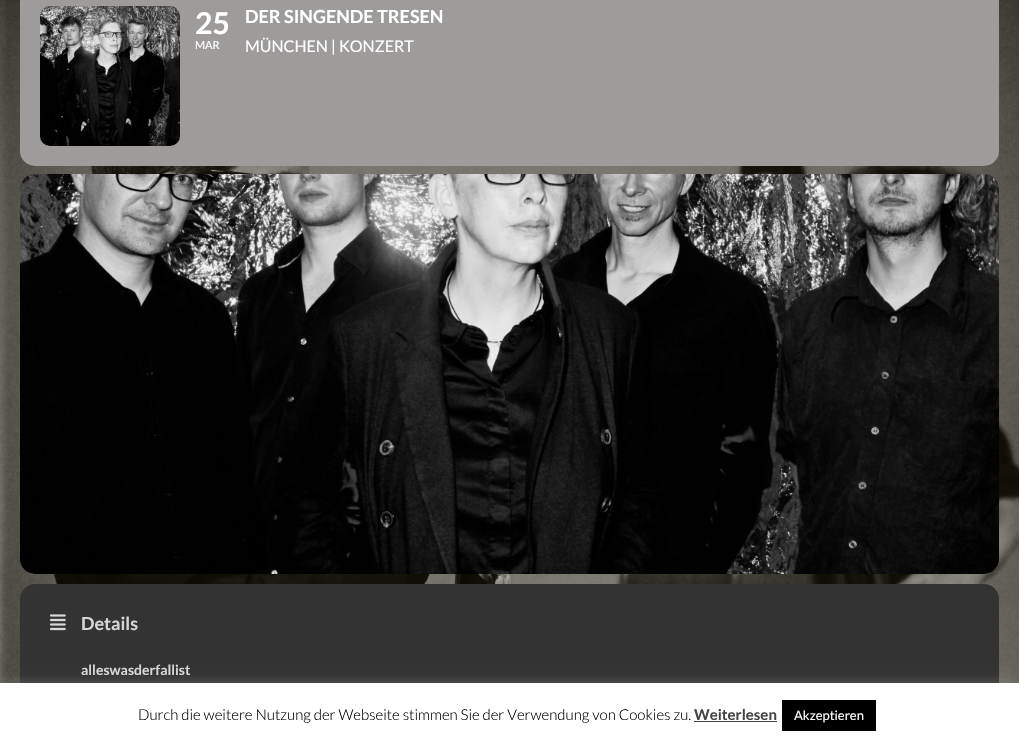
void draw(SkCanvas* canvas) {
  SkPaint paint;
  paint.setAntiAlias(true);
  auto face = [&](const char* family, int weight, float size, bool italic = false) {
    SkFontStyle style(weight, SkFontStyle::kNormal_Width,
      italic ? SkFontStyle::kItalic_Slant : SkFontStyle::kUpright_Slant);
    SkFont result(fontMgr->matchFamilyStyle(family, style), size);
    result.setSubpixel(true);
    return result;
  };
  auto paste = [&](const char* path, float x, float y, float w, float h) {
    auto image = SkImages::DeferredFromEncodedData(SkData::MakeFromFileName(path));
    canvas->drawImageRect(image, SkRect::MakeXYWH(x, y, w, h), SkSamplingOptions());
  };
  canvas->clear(0xffffffff);
  paste("img/1.png", 0, 0, 1019, 683);
  paint.setColor(0xff9e9b9b);
  canvas->drawRoundRect(SkRect::MakeXYWH(20, -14, 979, 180), 15, 15, paint);
  paste("img/2.png", 40, 6, 140, 140);
  paint.setColor(0xff333333);
  canvas->drawRoundRect(SkRect::MakeXYWH(20, 174, 979, 400), 15, 15, paint);
  paste("img/3.png", 20, 174, 979, 400);
  canvas->drawRoundRect(SkRect::MakeXYWH(20, 584, 979, 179), 15, 15, paint);
  paste("img/4.png", 50, 614, 16, 17);
  paint.setColor(0x4dacabab);
  paint.setMaskFilter(SkMaskFilter::MakeBlur(kNormal_SkBlurStyle, 5));
  canvas->drawRect(SkRect::MakeXYWH(0, 682, 1019, 65), paint);
  paint.setMaskFilter(nullptr);
  {
    const struct { float x, y, w, h; SkColor color; } items[] = {
      {0, 683, 1019, 65, 0xffffffff},
      {694, 721, 83, 1, 0xff444444},
      {782, 700, 94, 31, 0xff000000},
    };
    for (auto [x, y, w, h, color] : items) {
      paint.setColor(color);
      canvas->drawRect(SkRect::MakeXYWH(x, y, w, h), paint);
    }
  }
  auto f0 = face("Lato", 700, 30);
  paint.setColor(0xffffffff);
  canvas->drawString("25", 195, 34, f0, paint);
  auto f1 = face("Lato", 400, 11);
  canvas->drawString("MAR", 195, 49, f1, paint);
  auto f2 = face("Lato", 700, 18);
  canvas->drawString("DER SINGENDE TRESEN", 245, 23, f2, paint);
  auto f3 = face("Lato", 400, 16);
  canvas->drawString("MÜNCHEN | KONZERT", 245, 52, f3, paint);
  paint.setColor(0xffd6d6d6);
  canvas->drawString("Details", 81, 630, f2, paint);
  auto f4 = face("Lato", 700, 14);
  canvas->drawString("alleswasderfallist", 81, 675, f4, paint);
  auto f5 = face("Lato", 300, 15);
  paint.setColor(0xff000000);
  canvas->drawString("Durch die weitere Nutzung der Webseite stimmen Sie der Verwendung von Cookies zu.", 138, 720, f5, paint);
  auto f6 = face("Lato", 700, 15);
  paint.setColor(0xff444444);
  canvas->drawString("Weiterlesen", 694, 720, f6, paint);
  auto f7 = face("Lato", 400, 13);
  paint.setColor(0xffffffff);
  canvas->drawString("Akzeptieren", 794, 720, f7, paint);
}
